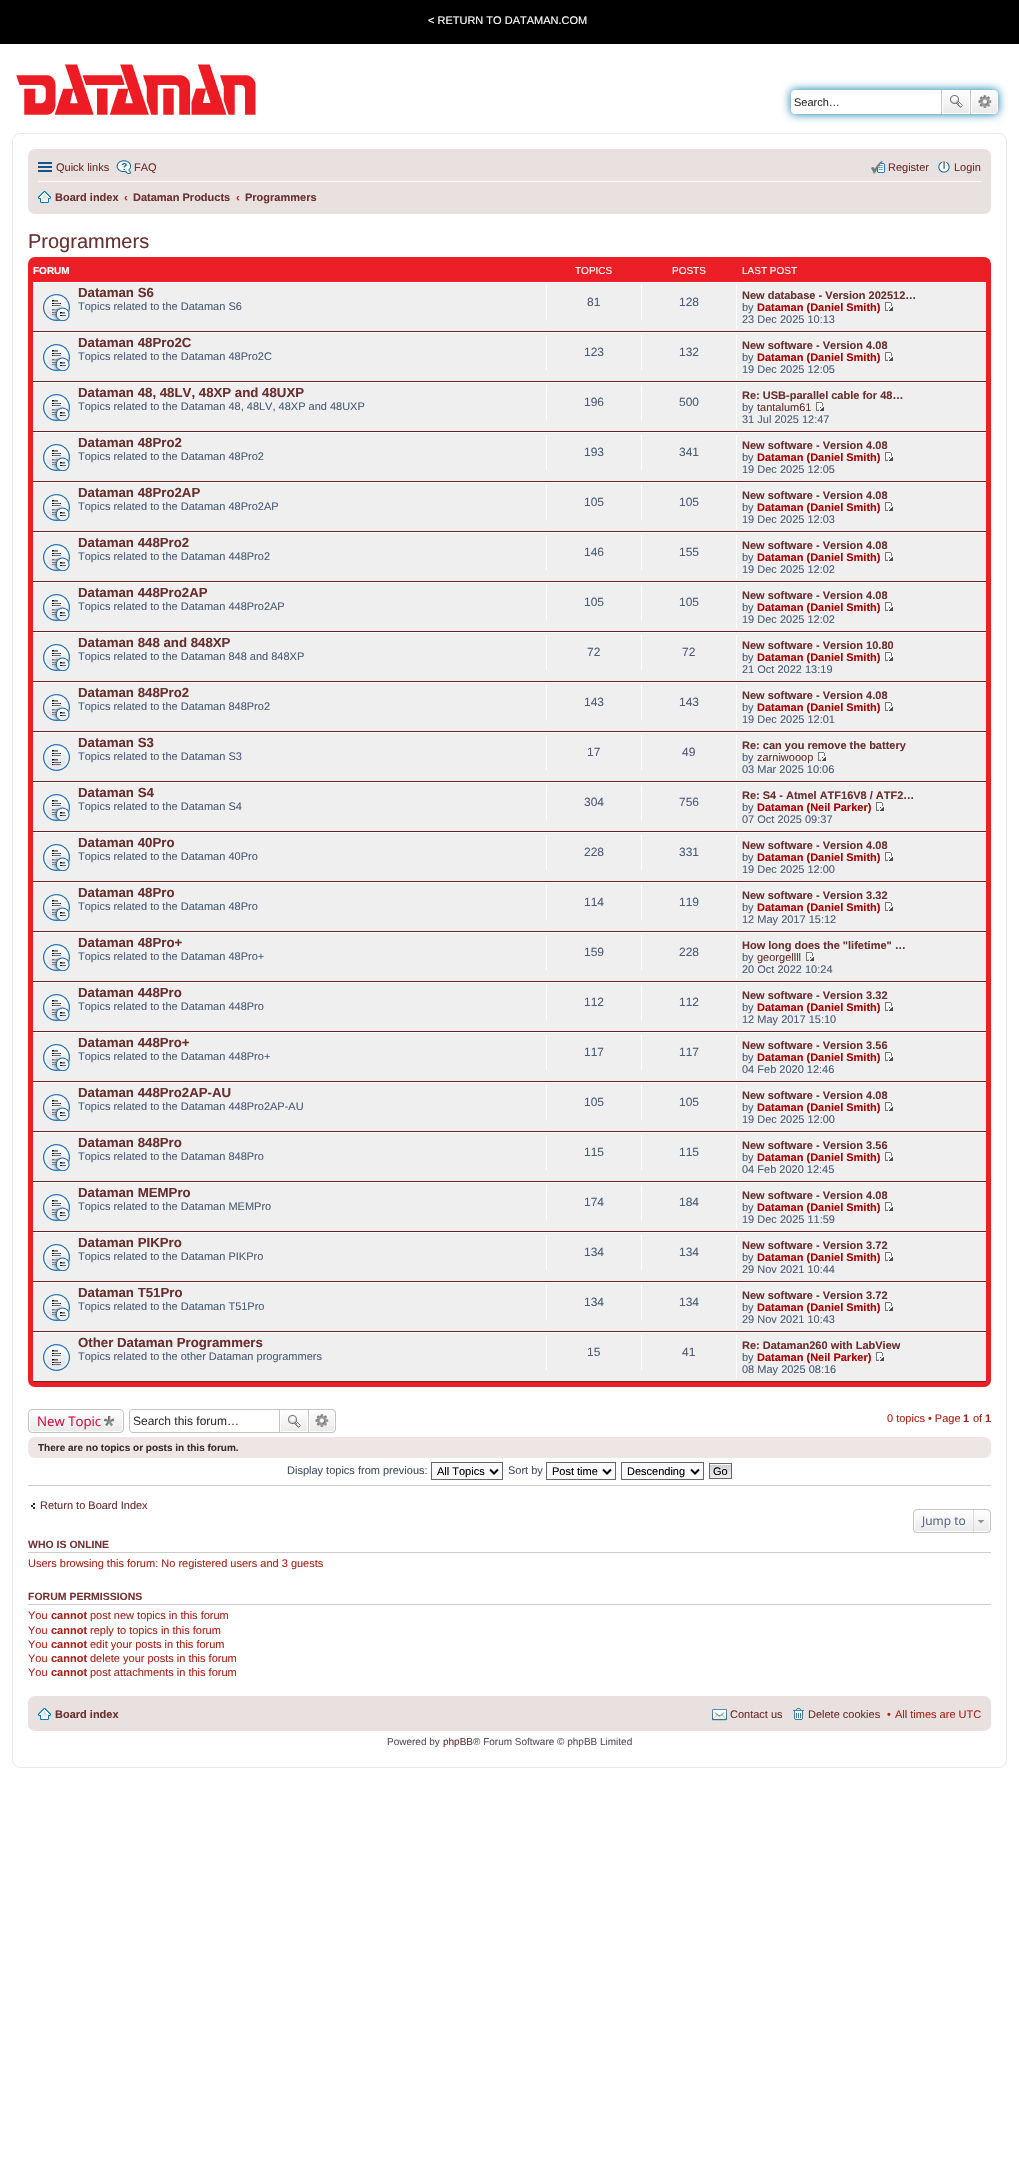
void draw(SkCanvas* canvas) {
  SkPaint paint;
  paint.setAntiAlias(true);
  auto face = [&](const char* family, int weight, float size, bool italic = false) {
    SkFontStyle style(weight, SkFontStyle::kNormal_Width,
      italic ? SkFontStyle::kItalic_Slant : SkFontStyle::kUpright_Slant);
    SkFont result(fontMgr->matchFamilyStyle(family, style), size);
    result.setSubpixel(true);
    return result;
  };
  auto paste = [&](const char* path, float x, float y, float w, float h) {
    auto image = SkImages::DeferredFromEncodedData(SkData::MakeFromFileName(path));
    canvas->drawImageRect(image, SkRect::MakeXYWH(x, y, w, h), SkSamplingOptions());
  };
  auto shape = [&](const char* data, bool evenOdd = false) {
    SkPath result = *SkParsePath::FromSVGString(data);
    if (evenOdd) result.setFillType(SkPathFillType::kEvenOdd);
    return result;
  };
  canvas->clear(0xffffffff);
  paint.setColor(0xff000000);
  canvas->drawRect(SkRect::MakeXYWH(0, 0, 1019, 44), paint);
  paste("img/1.png", 16, 64, 240, 51);
  paint.setColor(0xff0075b0);
  paint.setMaskFilter(SkMaskFilter::MakeBlur(kNormal_SkBlurStyle, 5));
  canvas->drawRoundRect(SkRect::MakeXYWH(791, 90, 207, 24), 4, 4, paint);
  paint.setMaskFilter(nullptr);
  paint.setColor(0xffffffff);
  canvas->drawPath(shape("M795 90H941V114H795C793 114 791 112 791 110V94C791 92 793 90 795 90Z"), paint);
  {
    const SkColor colors[] = {0xffffffff, 0xffe9e9e9};
    const float stops[] = {0, 1};
    const SkPoint ends[] = {{956, 90}, {956, 114}};
    paint.setShader(SkGradientShader::MakeLinear(ends, colors, stops, 2, SkTileMode::kClamp));
    paint.setAlpha(255);
  }
  canvas->drawRect(SkRect::MakeXYWH(943, 91, 26, 22), paint);
  paint.setStroke(true);
  paint.setStrokeWidth(1);
  paint.setShader(nullptr);
  paint.setColor(0xffffffff);
  canvas->drawRect(SkRect::MakeXYWH(942.5f, 90.5f, 27, 23), paint);
  paint.setStroke(false);
  paint.setColor(0xffc7c3bf);
  canvas->drawRect(SkRect::MakeXYWH(970, 90, 1, 24), paint);
  canvas->drawRect(SkRect::MakeXYWH(941, 90, 1, 24), paint);
  paste("img/2.png", 950, 95, 13, 13);
  {
    const SkColor colors[] = {0xffffffff, 0xffe9e9e9};
    const float stops[] = {0, 1};
    const SkPoint ends[] = {{985, 90}, {985, 114}};
    paint.setShader(SkGradientShader::MakeLinear(ends, colors, stops, 2, SkTileMode::kClamp));
    paint.setAlpha(255);
  }
  canvas->drawPath(shape("M971.5 90.5H994C996 90.5 997.5 92 997.5 94V110C997.5 112 996 113.5 994 113.5H971.5Z"), paint);
  paint.setStroke(true);
  paint.setShader(nullptr);
  paint.setColor(0xffffffff);
  canvas->drawPath(shape("M971.5 90.5H994C996 90.5 997.5 92 997.5 94V110C997.5 112 996 113.5 994 113.5H971.5Z"), paint);
  paste("img/3.png", 978, 95, 14, 13);
  paint.setColor(0xffe6e9ed);
  canvas->drawRoundRect(SkRect::MakeXYWH(12.5f, 133.5f, 994, 1634), 7.5f, 7.5f, paint);
  paint.setStroke(false);
  paint.setColor(0xffe9e1e0);
  canvas->drawRoundRect(SkRect::MakeXYWH(28, 149, 963, 65), 7, 7, paint);
  {
    const struct { float x, y, w, h; SkColor color; } items[] = {
      {38, 162, 14, 2, 0xff105289},
      {38, 166, 14, 2, 0xff105289},
      {38, 170, 14, 2, 0xff105289},
    };
    for (auto [x, y, w, h, color] : items) {
      paint.setColor(color);
      canvas->drawRect(SkRect::MakeXYWH(x, y, w, h), paint);
    }
  }
  paste("img/4.png", 116, 160, 16, 14);
  paste("img/5.png", 871, 161, 14, 13);
  paste("img/6.png", 938, 161, 12, 12);
  paint.setColor(0xffffffff);
  canvas->drawRect(SkRect::MakeXYWH(38, 181, 943, 1), paint);
  paste("img/7.png", 38, 191, 13, 12);
  paint.setColor(0xffec1f27);
  canvas->drawRoundRect(SkRect::MakeXYWH(28, 257, 963, 1130), 7, 7, paint);
  {
    const struct { float x, y, w, h; SkColor color; } items[] = {
      {33, 283, 953, 48, 0xffefefef},
      {33, 282, 953, 1, 0xffffffff},
      {33, 331, 953, 1, 0xff6b2424},
    };
    for (auto [x, y, w, h, color] : items) {
      paint.setColor(color);
      canvas->drawRect(SkRect::MakeXYWH(x, y, w, h), paint);
    }
  }
  paste("img/8.png", 43, 294, 27, 27);
  {
    const struct { float x, y, w, h; SkColor color; } items[] = {
      {546, 285, 1, 35, 0xffffffff},
      {641, 285, 1, 35, 0xffffffff},
      {736, 285, 1, 44, 0xffffffff},
    };
    for (auto [x, y, w, h, color] : items) {
      paint.setColor(color);
      canvas->drawRect(SkRect::MakeXYWH(x, y, w, h), paint);
    }
  }
  paste("img/9.png", 885, 302, 8, 9);
  {
    const struct { float x, y, w, h; SkColor color; } items[] = {
      {33, 333, 953, 48, 0xffefefef},
      {33, 332, 953, 1, 0xffffffff},
      {33, 381, 953, 1, 0xff6b2424},
    };
    for (auto [x, y, w, h, color] : items) {
      paint.setColor(color);
      canvas->drawRect(SkRect::MakeXYWH(x, y, w, h), paint);
    }
  }
  paste("img/8.png", 43, 344, 27, 27);
  {
    const struct { float x, y, w, h; SkColor color; } items[] = {
      {546, 335, 1, 35, 0xffffffff},
      {641, 335, 1, 35, 0xffffffff},
      {736, 335, 1, 44, 0xffffffff},
    };
    for (auto [x, y, w, h, color] : items) {
      paint.setColor(color);
      canvas->drawRect(SkRect::MakeXYWH(x, y, w, h), paint);
    }
  }
  paste("img/9.png", 885, 352, 8, 9);
  {
    const struct { float x, y, w, h; SkColor color; } items[] = {
      {33, 383, 953, 48, 0xffefefef},
      {33, 382, 953, 1, 0xffffffff},
      {33, 431, 953, 1, 0xff6b2424},
    };
    for (auto [x, y, w, h, color] : items) {
      paint.setColor(color);
      canvas->drawRect(SkRect::MakeXYWH(x, y, w, h), paint);
    }
  }
  paste("img/8.png", 43, 394, 27, 27);
  {
    const struct { float x, y, w, h; SkColor color; } items[] = {
      {546, 385, 1, 35, 0xffffffff},
      {641, 385, 1, 35, 0xffffffff},
      {736, 385, 1, 44, 0xffffffff},
    };
    for (auto [x, y, w, h, color] : items) {
      paint.setColor(color);
      canvas->drawRect(SkRect::MakeXYWH(x, y, w, h), paint);
    }
  }
  paste("img/9.png", 816, 402, 8, 9);
  {
    const struct { float x, y, w, h; SkColor color; } items[] = {
      {33, 433, 953, 48, 0xffefefef},
      {33, 432, 953, 1, 0xffffffff},
      {33, 481, 953, 1, 0xff6b2424},
    };
    for (auto [x, y, w, h, color] : items) {
      paint.setColor(color);
      canvas->drawRect(SkRect::MakeXYWH(x, y, w, h), paint);
    }
  }
  paste("img/8.png", 43, 444, 27, 27);
  {
    const struct { float x, y, w, h; SkColor color; } items[] = {
      {546, 435, 1, 35, 0xffffffff},
      {641, 435, 1, 35, 0xffffffff},
      {736, 435, 1, 44, 0xffffffff},
    };
    for (auto [x, y, w, h, color] : items) {
      paint.setColor(color);
      canvas->drawRect(SkRect::MakeXYWH(x, y, w, h), paint);
    }
  }
  paste("img/9.png", 885, 452, 8, 9);
  {
    const struct { float x, y, w, h; SkColor color; } items[] = {
      {33, 483, 953, 48, 0xffefefef},
      {33, 482, 953, 1, 0xffffffff},
      {33, 531, 953, 1, 0xff6b2424},
    };
    for (auto [x, y, w, h, color] : items) {
      paint.setColor(color);
      canvas->drawRect(SkRect::MakeXYWH(x, y, w, h), paint);
    }
  }
  paste("img/8.png", 43, 494, 27, 27);
  {
    const struct { float x, y, w, h; SkColor color; } items[] = {
      {546, 485, 1, 35, 0xffffffff},
      {641, 485, 1, 35, 0xffffffff},
      {736, 485, 1, 44, 0xffffffff},
    };
    for (auto [x, y, w, h, color] : items) {
      paint.setColor(color);
      canvas->drawRect(SkRect::MakeXYWH(x, y, w, h), paint);
    }
  }
  paste("img/9.png", 885, 502, 8, 9);
  {
    const struct { float x, y, w, h; SkColor color; } items[] = {
      {33, 533, 953, 48, 0xffefefef},
      {33, 532, 953, 1, 0xffffffff},
      {33, 581, 953, 1, 0xff6b2424},
    };
    for (auto [x, y, w, h, color] : items) {
      paint.setColor(color);
      canvas->drawRect(SkRect::MakeXYWH(x, y, w, h), paint);
    }
  }
  paste("img/8.png", 43, 544, 27, 27);
  {
    const struct { float x, y, w, h; SkColor color; } items[] = {
      {546, 535, 1, 35, 0xffffffff},
      {641, 535, 1, 35, 0xffffffff},
      {736, 535, 1, 44, 0xffffffff},
    };
    for (auto [x, y, w, h, color] : items) {
      paint.setColor(color);
      canvas->drawRect(SkRect::MakeXYWH(x, y, w, h), paint);
    }
  }
  paste("img/9.png", 885, 552, 8, 9);
  {
    const struct { float x, y, w, h; SkColor color; } items[] = {
      {33, 583, 953, 48, 0xffefefef},
      {33, 582, 953, 1, 0xffffffff},
      {33, 631, 953, 1, 0xff6b2424},
    };
    for (auto [x, y, w, h, color] : items) {
      paint.setColor(color);
      canvas->drawRect(SkRect::MakeXYWH(x, y, w, h), paint);
    }
  }
  paste("img/8.png", 43, 594, 27, 27);
  {
    const struct { float x, y, w, h; SkColor color; } items[] = {
      {546, 585, 1, 35, 0xffffffff},
      {641, 585, 1, 35, 0xffffffff},
      {736, 585, 1, 44, 0xffffffff},
    };
    for (auto [x, y, w, h, color] : items) {
      paint.setColor(color);
      canvas->drawRect(SkRect::MakeXYWH(x, y, w, h), paint);
    }
  }
  paste("img/9.png", 885, 602, 8, 9);
  {
    const struct { float x, y, w, h; SkColor color; } items[] = {
      {33, 633, 953, 48, 0xffefefef},
      {33, 632, 953, 1, 0xffffffff},
      {33, 681, 953, 1, 0xff6b2424},
    };
    for (auto [x, y, w, h, color] : items) {
      paint.setColor(color);
      canvas->drawRect(SkRect::MakeXYWH(x, y, w, h), paint);
    }
  }
  paste("img/8.png", 43, 644, 27, 27);
  {
    const struct { float x, y, w, h; SkColor color; } items[] = {
      {546, 635, 1, 35, 0xffffffff},
      {641, 635, 1, 35, 0xffffffff},
      {736, 635, 1, 44, 0xffffffff},
    };
    for (auto [x, y, w, h, color] : items) {
      paint.setColor(color);
      canvas->drawRect(SkRect::MakeXYWH(x, y, w, h), paint);
    }
  }
  paste("img/9.png", 885, 652, 8, 9);
  {
    const struct { float x, y, w, h; SkColor color; } items[] = {
      {33, 683, 953, 48, 0xffefefef},
      {33, 682, 953, 1, 0xffffffff},
      {33, 731, 953, 1, 0xff6b2424},
    };
    for (auto [x, y, w, h, color] : items) {
      paint.setColor(color);
      canvas->drawRect(SkRect::MakeXYWH(x, y, w, h), paint);
    }
  }
  paste("img/8.png", 43, 694, 27, 27);
  {
    const struct { float x, y, w, h; SkColor color; } items[] = {
      {546, 685, 1, 35, 0xffffffff},
      {641, 685, 1, 35, 0xffffffff},
      {736, 685, 1, 44, 0xffffffff},
    };
    for (auto [x, y, w, h, color] : items) {
      paint.setColor(color);
      canvas->drawRect(SkRect::MakeXYWH(x, y, w, h), paint);
    }
  }
  paste("img/9.png", 885, 702, 8, 9);
  {
    const struct { float x, y, w, h; SkColor color; } items[] = {
      {33, 733, 953, 48, 0xffefefef},
      {33, 732, 953, 1, 0xffffffff},
      {33, 781, 953, 1, 0xff6b2424},
    };
    for (auto [x, y, w, h, color] : items) {
      paint.setColor(color);
      canvas->drawRect(SkRect::MakeXYWH(x, y, w, h), paint);
    }
  }
  paste("img/10.png", 43, 744, 27, 27);
  {
    const struct { float x, y, w, h; SkColor color; } items[] = {
      {546, 735, 1, 35, 0xffffffff},
      {641, 735, 1, 35, 0xffffffff},
      {736, 735, 1, 44, 0xffffffff},
    };
    for (auto [x, y, w, h, color] : items) {
      paint.setColor(color);
      canvas->drawRect(SkRect::MakeXYWH(x, y, w, h), paint);
    }
  }
  paste("img/9.png", 818, 752, 8, 9);
  {
    const struct { float x, y, w, h; SkColor color; } items[] = {
      {33, 783, 953, 48, 0xffefefef},
      {33, 782, 953, 1, 0xffffffff},
      {33, 831, 953, 1, 0xff6b2424},
    };
    for (auto [x, y, w, h, color] : items) {
      paint.setColor(color);
      canvas->drawRect(SkRect::MakeXYWH(x, y, w, h), paint);
    }
  }
  paste("img/8.png", 43, 794, 27, 27);
  {
    const struct { float x, y, w, h; SkColor color; } items[] = {
      {546, 785, 1, 35, 0xffffffff},
      {641, 785, 1, 35, 0xffffffff},
      {736, 785, 1, 44, 0xffffffff},
    };
    for (auto [x, y, w, h, color] : items) {
      paint.setColor(color);
      canvas->drawRect(SkRect::MakeXYWH(x, y, w, h), paint);
    }
  }
  paste("img/9.png", 876, 802, 8, 9);
  {
    const struct { float x, y, w, h; SkColor color; } items[] = {
      {33, 833, 953, 48, 0xffefefef},
      {33, 832, 953, 1, 0xffffffff},
      {33, 881, 953, 1, 0xff6b2424},
    };
    for (auto [x, y, w, h, color] : items) {
      paint.setColor(color);
      canvas->drawRect(SkRect::MakeXYWH(x, y, w, h), paint);
    }
  }
  paste("img/8.png", 43, 844, 27, 27);
  {
    const struct { float x, y, w, h; SkColor color; } items[] = {
      {546, 835, 1, 35, 0xffffffff},
      {641, 835, 1, 35, 0xffffffff},
      {736, 835, 1, 44, 0xffffffff},
    };
    for (auto [x, y, w, h, color] : items) {
      paint.setColor(color);
      canvas->drawRect(SkRect::MakeXYWH(x, y, w, h), paint);
    }
  }
  paste("img/9.png", 885, 852, 8, 9);
  {
    const struct { float x, y, w, h; SkColor color; } items[] = {
      {33, 883, 953, 48, 0xffefefef},
      {33, 882, 953, 1, 0xffffffff},
      {33, 931, 953, 1, 0xff6b2424},
    };
    for (auto [x, y, w, h, color] : items) {
      paint.setColor(color);
      canvas->drawRect(SkRect::MakeXYWH(x, y, w, h), paint);
    }
  }
  paste("img/8.png", 43, 894, 27, 27);
  {
    const struct { float x, y, w, h; SkColor color; } items[] = {
      {546, 885, 1, 35, 0xffffffff},
      {641, 885, 1, 35, 0xffffffff},
      {736, 885, 1, 44, 0xffffffff},
    };
    for (auto [x, y, w, h, color] : items) {
      paint.setColor(color);
      canvas->drawRect(SkRect::MakeXYWH(x, y, w, h), paint);
    }
  }
  paste("img/9.png", 885, 902, 8, 9);
  {
    const struct { float x, y, w, h; SkColor color; } items[] = {
      {33, 933, 953, 48, 0xffefefef},
      {33, 932, 953, 1, 0xffffffff},
      {33, 981, 953, 1, 0xff6b2424},
    };
    for (auto [x, y, w, h, color] : items) {
      paint.setColor(color);
      canvas->drawRect(SkRect::MakeXYWH(x, y, w, h), paint);
    }
  }
  paste("img/8.png", 43, 944, 27, 27);
  {
    const struct { float x, y, w, h; SkColor color; } items[] = {
      {546, 935, 1, 35, 0xffffffff},
      {641, 935, 1, 35, 0xffffffff},
      {736, 935, 1, 44, 0xffffffff},
    };
    for (auto [x, y, w, h, color] : items) {
      paint.setColor(color);
      canvas->drawRect(SkRect::MakeXYWH(x, y, w, h), paint);
    }
  }
  paste("img/9.png", 806, 952, 8, 9);
  {
    const struct { float x, y, w, h; SkColor color; } items[] = {
      {33, 983, 953, 48, 0xffefefef},
      {33, 982, 953, 1, 0xffffffff},
      {33, 1031, 953, 1, 0xff6b2424},
    };
    for (auto [x, y, w, h, color] : items) {
      paint.setColor(color);
      canvas->drawRect(SkRect::MakeXYWH(x, y, w, h), paint);
    }
  }
  paste("img/8.png", 43, 994, 27, 27);
  {
    const struct { float x, y, w, h; SkColor color; } items[] = {
      {546, 985, 1, 35, 0xffffffff},
      {641, 985, 1, 35, 0xffffffff},
      {736, 985, 1, 44, 0xffffffff},
    };
    for (auto [x, y, w, h, color] : items) {
      paint.setColor(color);
      canvas->drawRect(SkRect::MakeXYWH(x, y, w, h), paint);
    }
  }
  paste("img/9.png", 885, 1002, 8, 9);
  {
    const struct { float x, y, w, h; SkColor color; } items[] = {
      {33, 1033, 953, 48, 0xffefefef},
      {33, 1032, 953, 1, 0xffffffff},
      {33, 1081, 953, 1, 0xff6b2424},
    };
    for (auto [x, y, w, h, color] : items) {
      paint.setColor(color);
      canvas->drawRect(SkRect::MakeXYWH(x, y, w, h), paint);
    }
  }
  paste("img/8.png", 43, 1044, 27, 27);
  {
    const struct { float x, y, w, h; SkColor color; } items[] = {
      {546, 1035, 1, 35, 0xffffffff},
      {641, 1035, 1, 35, 0xffffffff},
      {736, 1035, 1, 44, 0xffffffff},
    };
    for (auto [x, y, w, h, color] : items) {
      paint.setColor(color);
      canvas->drawRect(SkRect::MakeXYWH(x, y, w, h), paint);
    }
  }
  paste("img/9.png", 885, 1052, 8, 9);
  {
    const struct { float x, y, w, h; SkColor color; } items[] = {
      {33, 1083, 953, 48, 0xffefefef},
      {33, 1082, 953, 1, 0xffffffff},
      {33, 1131, 953, 1, 0xff6b2424},
    };
    for (auto [x, y, w, h, color] : items) {
      paint.setColor(color);
      canvas->drawRect(SkRect::MakeXYWH(x, y, w, h), paint);
    }
  }
  paste("img/8.png", 43, 1094, 27, 27);
  {
    const struct { float x, y, w, h; SkColor color; } items[] = {
      {546, 1085, 1, 35, 0xffffffff},
      {641, 1085, 1, 35, 0xffffffff},
      {736, 1085, 1, 44, 0xffffffff},
    };
    for (auto [x, y, w, h, color] : items) {
      paint.setColor(color);
      canvas->drawRect(SkRect::MakeXYWH(x, y, w, h), paint);
    }
  }
  paste("img/9.png", 885, 1102, 8, 9);
  {
    const struct { float x, y, w, h; SkColor color; } items[] = {
      {33, 1133, 953, 48, 0xffefefef},
      {33, 1132, 953, 1, 0xffffffff},
      {33, 1181, 953, 1, 0xff6b2424},
    };
    for (auto [x, y, w, h, color] : items) {
      paint.setColor(color);
      canvas->drawRect(SkRect::MakeXYWH(x, y, w, h), paint);
    }
  }
  paste("img/8.png", 43, 1144, 27, 27);
  {
    const struct { float x, y, w, h; SkColor color; } items[] = {
      {546, 1135, 1, 35, 0xffffffff},
      {641, 1135, 1, 35, 0xffffffff},
      {736, 1135, 1, 44, 0xffffffff},
    };
    for (auto [x, y, w, h, color] : items) {
      paint.setColor(color);
      canvas->drawRect(SkRect::MakeXYWH(x, y, w, h), paint);
    }
  }
  paste("img/9.png", 885, 1152, 8, 9);
  {
    const struct { float x, y, w, h; SkColor color; } items[] = {
      {33, 1183, 953, 48, 0xffefefef},
      {33, 1182, 953, 1, 0xffffffff},
      {33, 1231, 953, 1, 0xff6b2424},
    };
    for (auto [x, y, w, h, color] : items) {
      paint.setColor(color);
      canvas->drawRect(SkRect::MakeXYWH(x, y, w, h), paint);
    }
  }
  paste("img/8.png", 43, 1194, 27, 27);
  {
    const struct { float x, y, w, h; SkColor color; } items[] = {
      {546, 1185, 1, 35, 0xffffffff},
      {641, 1185, 1, 35, 0xffffffff},
      {736, 1185, 1, 44, 0xffffffff},
    };
    for (auto [x, y, w, h, color] : items) {
      paint.setColor(color);
      canvas->drawRect(SkRect::MakeXYWH(x, y, w, h), paint);
    }
  }
  paste("img/9.png", 885, 1202, 8, 9);
  {
    const struct { float x, y, w, h; SkColor color; } items[] = {
      {33, 1233, 953, 48, 0xffefefef},
      {33, 1232, 953, 1, 0xffffffff},
      {33, 1281, 953, 1, 0xff6b2424},
    };
    for (auto [x, y, w, h, color] : items) {
      paint.setColor(color);
      canvas->drawRect(SkRect::MakeXYWH(x, y, w, h), paint);
    }
  }
  paste("img/8.png", 43, 1244, 27, 27);
  {
    const struct { float x, y, w, h; SkColor color; } items[] = {
      {546, 1235, 1, 35, 0xffffffff},
      {641, 1235, 1, 35, 0xffffffff},
      {736, 1235, 1, 44, 0xffffffff},
    };
    for (auto [x, y, w, h, color] : items) {
      paint.setColor(color);
      canvas->drawRect(SkRect::MakeXYWH(x, y, w, h), paint);
    }
  }
  paste("img/9.png", 885, 1252, 8, 9);
  {
    const struct { float x, y, w, h; SkColor color; } items[] = {
      {33, 1283, 953, 48, 0xffefefef},
      {33, 1282, 953, 1, 0xffffffff},
      {33, 1331, 953, 1, 0xff6b2424},
    };
    for (auto [x, y, w, h, color] : items) {
      paint.setColor(color);
      canvas->drawRect(SkRect::MakeXYWH(x, y, w, h), paint);
    }
  }
  paste("img/8.png", 43, 1294, 27, 27);
  {
    const struct { float x, y, w, h; SkColor color; } items[] = {
      {546, 1285, 1, 35, 0xffffffff},
      {641, 1285, 1, 35, 0xffffffff},
      {736, 1285, 1, 44, 0xffffffff},
    };
    for (auto [x, y, w, h, color] : items) {
      paint.setColor(color);
      canvas->drawRect(SkRect::MakeXYWH(x, y, w, h), paint);
    }
  }
  paste("img/9.png", 885, 1302, 8, 9);
  {
    const struct { float x, y, w, h; SkColor color; } items[] = {
      {33, 1333, 953, 48, 0xffefefef},
      {33, 1332, 953, 1, 0xffffffff},
      {33, 1381, 953, 1, 0xff6b2424},
    };
    for (auto [x, y, w, h, color] : items) {
      paint.setColor(color);
      canvas->drawRect(SkRect::MakeXYWH(x, y, w, h), paint);
    }
  }
  paste("img/10.png", 43, 1344, 27, 27);
  {
    const struct { float x, y, w, h; SkColor color; } items[] = {
      {546, 1335, 1, 35, 0xffffffff},
      {641, 1335, 1, 35, 0xffffffff},
      {736, 1335, 1, 44, 0xffffffff},
    };
    for (auto [x, y, w, h, color] : items) {
      paint.setColor(color);
      canvas->drawRect(SkRect::MakeXYWH(x, y, w, h), paint);
    }
  }
  paste("img/9.png", 876, 1352, 8, 9);
  canvas->save();
  canvas->clipPath(shape("M32 1409H120C122 1409 124 1411 124 1413V1429C124 1431 122 1433 120 1433H32C30 1433 28 1431 28 1429V1413C28 1411 30 1409 32 1409Z"), true);
  {
    const SkColor colors[] = {0xffffffff, 0xffe9e9e9};
    const float stops[] = {0, 1};
    const SkPoint ends[] = {{76, 1410}, {76, 1432}};
    paint.setShader(SkGradientShader::MakeLinear(ends, colors, stops, 2, SkTileMode::kClamp));
    paint.setAlpha(255);
  }
  canvas->drawRect(SkRect::MakeXYWH(28, 1410, 96, 22), paint);
  canvas->restore();
  paint.setStroke(true);
  paint.setShader(nullptr);
  paint.setColor(0xffffffff);
  canvas->drawRoundRect(SkRect::MakeXYWH(29.5f, 1410.5f, 93, 21), 2.5f, 2.5f, paint);
  paint.setColor(0xffc7c3bf);
  canvas->drawRoundRect(SkRect::MakeXYWH(28.5f, 1409.5f, 95, 23), 3.5f, 3.5f, paint);
  paste("img/11.png", 104, 1416, 11, 11);
  paint.setStroke(false);
  canvas->drawPath(shape("M133 1409H279V1433H133C131 1433 129 1431 129 1429V1413C129 1411 131 1409 133 1409ZM133 1410H279V1432H133C131 1432 130 1431 130 1429V1413C130 1411 131 1410 133 1410Z", true), paint);
  {
    const SkColor colors[] = {0xffffffff, 0xffe9e9e9};
    const float stops[] = {0, 1};
    const SkPoint ends[] = {{294, 1410}, {294, 1432}};
    paint.setShader(SkGradientShader::MakeLinear(ends, colors, stops, 2, SkTileMode::kClamp));
    paint.setAlpha(255);
  }
  canvas->drawRect(SkRect::MakeXYWH(281, 1413, 26, 18), paint);
  paint.setStroke(true);
  paint.setShader(nullptr);
  paint.setColor(0xffc7c3bf);
  canvas->drawRect(SkRect::MakeXYWH(279.5f, 1409.5f, 29, 23), paint);
  paste("img/12.png", 288, 1415, 13, 13);
  paint.setStroke(false);
  {
    const SkColor colors[] = {0xffffffff, 0xffe9e9e9};
    const float stops[] = {0, 1};
    const SkPoint ends[] = {{322, 1410}, {322, 1432}};
    paint.setShader(SkGradientShader::MakeLinear(ends, colors, stops, 2, SkTileMode::kClamp));
    paint.setAlpha(255);
  }
  canvas->drawPath(shape("M309.5 1410.5H332C333.5 1410.5 334.5 1411.5 334.5 1413V1429C334.5 1430.5 333.5 1431.5 332 1431.5H309.5Z"), paint);
  paint.setStroke(true);
  paint.setShader(nullptr);
  paint.setColor(0xffffffff);
  canvas->drawPath(shape("M309.5 1410.5H332C333.5 1410.5 334.5 1411.5 334.5 1413V1429C334.5 1430.5 333.5 1431.5 332 1431.5H309.5Z"), paint);
  paint.setStroke(false);
  paint.setColor(0xffc7c3bf);
  canvas->drawPath(shape("M309 1409H332C334 1409 336 1411 336 1413V1429C336 1431 334 1433 332 1433H309ZM309 1410H332C333.5 1410 335 1411.5 335 1413V1429C335 1430.5 333.5 1432 332 1432H309Z", true), paint);
  paste("img/13.png", 315, 1414, 14, 13);
  paint.setColor(0xffeee5e5);
  canvas->drawRoundRect(SkRect::MakeXYWH(28, 1437, 963, 21), 7, 7, paint);
  paint.setColor(0xfffafafa);
  canvas->drawRect(SkRect::MakeXYWH(431.5f, 1462.5f, 71, 17), paint);
  paint.setStroke(true);
  paint.setColor(0xff666666);
  canvas->drawRect(SkRect::MakeXYWH(431.5f, 1462.5f, 71, 17), paint);
  paint.setStrokeWidth(2);
  paint.setColor(0xff000000);
  canvas->drawPath(shape("M490 1469.5L494 1473.5L498 1469.5"), paint);
  paint.setStroke(false);
  paint.setColor(0xfffafafa);
  canvas->drawRect(SkRect::MakeXYWH(546.5f, 1462.5f, 69, 17), paint);
  paint.setStroke(true);
  paint.setStrokeWidth(1);
  paint.setColor(0xff666666);
  canvas->drawRect(SkRect::MakeXYWH(546.5f, 1462.5f, 69, 17), paint);
  paint.setStrokeWidth(2);
  paint.setColor(0xff000000);
  canvas->drawPath(shape("M603 1469.5L607 1473.5L611 1469.5"), paint);
  paint.setStroke(false);
  paint.setColor(0xfffafafa);
  canvas->drawRect(SkRect::MakeXYWH(621.5f, 1462.5f, 82, 17), paint);
  paint.setStroke(true);
  paint.setStrokeWidth(1);
  paint.setColor(0xff666666);
  canvas->drawRect(SkRect::MakeXYWH(621.5f, 1462.5f, 82, 17), paint);
  paint.setStrokeWidth(2);
  paint.setColor(0xff000000);
  canvas->drawPath(shape("M691 1469.5L695 1473.5L699 1469.5"), paint);
  paste("img/14.png", 710, 1464, 21, 14);
  paint.setStrokeWidth(1);
  paint.setColor(0xff666666);
  canvas->drawRect(SkRect::MakeXYWH(709.5f, 1463.5f, 22, 15), paint);
  paint.setStroke(false);
  paint.setColor(0xffcccccc);
  canvas->drawRect(SkRect::MakeXYWH(28, 1485, 963, 1), paint);
  paste("img/15.png", 31, 1503, 4, 6);
  canvas->save();
  canvas->clipPath(shape("M917 1509H987C989 1509 991 1511 991 1513V1529C991 1531 989 1533 987 1533H917C915 1533 913 1531 913 1529V1513C913 1511 915 1509 917 1509Z"), true);
  {
    const SkColor colors[] = {0xffffffff, 0xffe9e9e9};
    const float stops[] = {0, 1};
    const SkPoint ends[] = {{952, 1510}, {952, 1532}};
    paint.setShader(SkGradientShader::MakeLinear(ends, colors, stops, 2, SkTileMode::kClamp));
    paint.setAlpha(255);
  }
  canvas->drawRect(SkRect::MakeXYWH(913, 1510, 78, 22), paint);
  canvas->restore();
  paint.setStroke(true);
  paint.setShader(nullptr);
  paint.setColor(0xffffffff);
  canvas->drawRoundRect(SkRect::MakeXYWH(914.5f, 1510.5f, 75, 21), 2.5f, 2.5f, paint);
  paint.setColor(0xffc7c3bf);
  canvas->drawRoundRect(SkRect::MakeXYWH(913.5f, 1509.5f, 77, 23), 3.5f, 3.5f, paint);
  paste("img/16.png", 977, 1520, 8, 4);
  paint.setStroke(false);
  {
    const struct { float x, y, w, h; SkColor color; } items[] = {
      {973, 1510, 1, 22, 0xffdadada},
      {28, 1552, 963, 1, 0xffcccccc},
      {28, 1604, 963, 1, 0xffcccccc},
    };
    for (auto [x, y, w, h, color] : items) {
      paint.setColor(color);
      canvas->drawRect(SkRect::MakeXYWH(x, y, w, h), paint);
    }
  }
  paint.setColor(0xffe9e1e0);
  canvas->drawRoundRect(SkRect::MakeXYWH(28, 1696, 963, 35), 7, 7, paint);
  paste("img/7.png", 38, 1708, 13, 12);
  paste("img/17.png", 712, 1709, 15, 12);
  paste("img/18.png", 793, 1708, 11, 12);
  auto f0 = face("Liberation Sans", 400, 11);
  paint.setColor(0xffffffff);
  canvas->drawString("< RETURN TO DATAMAN.COM", 428, 24, f0, paint);
  paint.setColor(0xff333333);
  canvas->drawString("Search…", 794, 106, f0, paint);
  paint.setColor(0xff6a2f2f);
  {
    const struct { const char* s; float x, y; } items[] = {
      {"Quick links", 56, 171},
      {"FAQ", 134, 171},
      {"Register", 888, 171},
      {"Login", 954, 171},
    };
    for (auto [s, x, y] : items) {
      canvas->drawString(s, x, y, f0, paint);
    }
  }
  auto f1 = face("Liberation Sans", 700, 11);
  canvas->drawString("Board index", 55, 201, f1, paint);
  paint.setColor(0xffab2219);
  canvas->drawString("‹", 124, 201, f1, paint);
  paint.setColor(0xff6a2f2f);
  canvas->drawString("Dataman Products", 133, 201, f1, paint);
  paint.setColor(0xffab2219);
  canvas->drawString("‹", 236, 201, f1, paint);
  paint.setColor(0xff6a2f2f);
  canvas->drawString("Programmers", 245, 201, f1, paint);
  auto f2 = face("Liberation Sans", 400, 20);
  canvas->drawString("Programmers", 28, 248, f2, paint);
  auto f3 = face("Liberation Sans", 700, 10);
  paint.setColor(0xffffffff);
  canvas->drawString("FORUM", 33, 274, f3, paint);
  auto f4 = face("Liberation Sans", 400, 10);
  {
    const struct { const char* s; float x, y; } items[] = {
      {"TOPICS", 575, 274},
      {"POSTS", 672, 274},
      {"LAST POST", 742, 274},
    };
    for (auto [s, x, y] : items) {
      canvas->drawString(s, x, y, f4, paint);
    }
  }
  auto f5 = face("Liberation Sans", 700, 13.25f);
  paint.setColor(0xff6a2f2f);
  canvas->drawString("Dataman S6", 78, 297, f5, paint);
  paint.setColor(0xff4c5d77);
  canvas->drawString("Topics related to the Dataman S6", 78, 310, f0, paint);
  auto f6 = face("Liberation Sans", 400, 12);
  canvas->drawString("81", 587, 306, f6, paint);
  canvas->drawString("128", 679, 306, f6, paint);
  paint.setColor(0xff6a2f2f);
  canvas->drawString("New database - Version 202512…", 742, 299, f1, paint);
  paint.setColor(0xff4c5d77);
  canvas->drawString("by", 742, 311, f0, paint);
  paint.setColor(0xffaa0000);
  canvas->drawString("Dataman (Daniel Smith)", 757, 311, f1, paint);
  paint.setColor(0xff4c5d77);
  canvas->drawString("23 Dec 2025 10:13", 742, 323, f0, paint);
  paint.setColor(0xff6a2f2f);
  canvas->drawString("Dataman 48Pro2C", 78, 347, f5, paint);
  paint.setColor(0xff4c5d77);
  canvas->drawString("Topics related to the Dataman 48Pro2C", 78, 360, f0, paint);
  canvas->drawString("123", 584, 356, f6, paint);
  canvas->drawString("132", 679, 356, f6, paint);
  paint.setColor(0xff6a2f2f);
  canvas->drawString("New software - Version 4.08", 742, 349, f1, paint);
  paint.setColor(0xff4c5d77);
  canvas->drawString("by", 742, 361, f0, paint);
  paint.setColor(0xffaa0000);
  canvas->drawString("Dataman (Daniel Smith)", 757, 361, f1, paint);
  paint.setColor(0xff4c5d77);
  canvas->drawString("19 Dec 2025 12:05", 742, 373, f0, paint);
  paint.setColor(0xff6a2f2f);
  canvas->drawString("Dataman 48, 48LV, 48XP and 48UXP", 78, 397, f5, paint);
  paint.setColor(0xff4c5d77);
  canvas->drawString("Topics related to the Dataman 48, 48LV, 48XP and 48UXP", 78, 410, f0, paint);
  canvas->drawString("196", 584, 406, f6, paint);
  canvas->drawString("500", 679, 406, f6, paint);
  paint.setColor(0xff6a2f2f);
  canvas->drawString("Re: USB-parallel cable for 48…", 742, 399, f1, paint);
  paint.setColor(0xff4c5d77);
  canvas->drawString("by", 742, 411, f0, paint);
  paint.setColor(0xff6a2f2f);
  canvas->drawString("tantalum61", 757, 411, f0, paint);
  paint.setColor(0xff4c5d77);
  canvas->drawString("31 Jul 2025 12:47", 742, 423, f0, paint);
  paint.setColor(0xff6a2f2f);
  canvas->drawString("Dataman 48Pro2", 78, 447, f5, paint);
  paint.setColor(0xff4c5d77);
  canvas->drawString("Topics related to the Dataman 48Pro2", 78, 460, f0, paint);
  canvas->drawString("193", 584, 456, f6, paint);
  canvas->drawString("341", 679, 456, f6, paint);
  paint.setColor(0xff6a2f2f);
  canvas->drawString("New software - Version 4.08", 742, 449, f1, paint);
  paint.setColor(0xff4c5d77);
  canvas->drawString("by", 742, 461, f0, paint);
  paint.setColor(0xffaa0000);
  canvas->drawString("Dataman (Daniel Smith)", 757, 461, f1, paint);
  paint.setColor(0xff4c5d77);
  canvas->drawString("19 Dec 2025 12:05", 742, 473, f0, paint);
  paint.setColor(0xff6a2f2f);
  canvas->drawString("Dataman 48Pro2AP", 78, 497, f5, paint);
  paint.setColor(0xff4c5d77);
  canvas->drawString("Topics related to the Dataman 48Pro2AP", 78, 510, f0, paint);
  canvas->drawString("105", 584, 506, f6, paint);
  canvas->drawString("105", 679, 506, f6, paint);
  paint.setColor(0xff6a2f2f);
  canvas->drawString("New software - Version 4.08", 742, 499, f1, paint);
  paint.setColor(0xff4c5d77);
  canvas->drawString("by", 742, 511, f0, paint);
  paint.setColor(0xffaa0000);
  canvas->drawString("Dataman (Daniel Smith)", 757, 511, f1, paint);
  paint.setColor(0xff4c5d77);
  canvas->drawString("19 Dec 2025 12:03", 742, 523, f0, paint);
  paint.setColor(0xff6a2f2f);
  canvas->drawString("Dataman 448Pro2", 78, 547, f5, paint);
  paint.setColor(0xff4c5d77);
  canvas->drawString("Topics related to the Dataman 448Pro2", 78, 560, f0, paint);
  canvas->drawString("146", 584, 556, f6, paint);
  canvas->drawString("155", 679, 556, f6, paint);
  paint.setColor(0xff6a2f2f);
  canvas->drawString("New software - Version 4.08", 742, 549, f1, paint);
  paint.setColor(0xff4c5d77);
  canvas->drawString("by", 742, 561, f0, paint);
  paint.setColor(0xffaa0000);
  canvas->drawString("Dataman (Daniel Smith)", 757, 561, f1, paint);
  paint.setColor(0xff4c5d77);
  canvas->drawString("19 Dec 2025 12:02", 742, 573, f0, paint);
  paint.setColor(0xff6a2f2f);
  canvas->drawString("Dataman 448Pro2AP", 78, 597, f5, paint);
  paint.setColor(0xff4c5d77);
  canvas->drawString("Topics related to the Dataman 448Pro2AP", 78, 610, f0, paint);
  canvas->drawString("105", 584, 606, f6, paint);
  canvas->drawString("105", 679, 606, f6, paint);
  paint.setColor(0xff6a2f2f);
  canvas->drawString("New software - Version 4.08", 742, 599, f1, paint);
  paint.setColor(0xff4c5d77);
  canvas->drawString("by", 742, 611, f0, paint);
  paint.setColor(0xffaa0000);
  canvas->drawString("Dataman (Daniel Smith)", 757, 611, f1, paint);
  paint.setColor(0xff4c5d77);
  canvas->drawString("19 Dec 2025 12:02", 742, 623, f0, paint);
  paint.setColor(0xff6a2f2f);
  canvas->drawString("Dataman 848 and 848XP", 78, 647, f5, paint);
  paint.setColor(0xff4c5d77);
  canvas->drawString("Topics related to the Dataman 848 and 848XP", 78, 660, f0, paint);
  canvas->drawString("72", 587, 656, f6, paint);
  canvas->drawString("72", 682, 656, f6, paint);
  paint.setColor(0xff6a2f2f);
  canvas->drawString("New software - Version 10.80", 742, 649, f1, paint);
  paint.setColor(0xff4c5d77);
  canvas->drawString("by", 742, 661, f0, paint);
  paint.setColor(0xffaa0000);
  canvas->drawString("Dataman (Daniel Smith)", 757, 661, f1, paint);
  paint.setColor(0xff4c5d77);
  canvas->drawString("21 Oct 2022 13:19", 742, 673, f0, paint);
  paint.setColor(0xff6a2f2f);
  canvas->drawString("Dataman 848Pro2", 78, 697, f5, paint);
  paint.setColor(0xff4c5d77);
  canvas->drawString("Topics related to the Dataman 848Pro2", 78, 710, f0, paint);
  canvas->drawString("143", 584, 706, f6, paint);
  canvas->drawString("143", 679, 706, f6, paint);
  paint.setColor(0xff6a2f2f);
  canvas->drawString("New software - Version 4.08", 742, 699, f1, paint);
  paint.setColor(0xff4c5d77);
  canvas->drawString("by", 742, 711, f0, paint);
  paint.setColor(0xffaa0000);
  canvas->drawString("Dataman (Daniel Smith)", 757, 711, f1, paint);
  paint.setColor(0xff4c5d77);
  canvas->drawString("19 Dec 2025 12:01", 742, 723, f0, paint);
  paint.setColor(0xff6a2f2f);
  canvas->drawString("Dataman S3", 78, 747, f5, paint);
  paint.setColor(0xff4c5d77);
  canvas->drawString("Topics related to the Dataman S3", 78, 760, f0, paint);
  canvas->drawString("17", 587, 756, f6, paint);
  canvas->drawString("49", 682, 756, f6, paint);
  paint.setColor(0xff6a2f2f);
  canvas->drawString("Re: can you remove the battery", 742, 749, f1, paint);
  paint.setColor(0xff4c5d77);
  canvas->drawString("by", 742, 761, f0, paint);
  paint.setColor(0xff6a2f2f);
  canvas->drawString("zarniwooop", 757, 761, f0, paint);
  paint.setColor(0xff4c5d77);
  canvas->drawString("03 Mar 2025 10:06", 742, 773, f0, paint);
  paint.setColor(0xff6a2f2f);
  canvas->drawString("Dataman S4", 78, 797, f5, paint);
  paint.setColor(0xff4c5d77);
  canvas->drawString("Topics related to the Dataman S4", 78, 810, f0, paint);
  canvas->drawString("304", 584, 806, f6, paint);
  canvas->drawString("756", 679, 806, f6, paint);
  paint.setColor(0xff6a2f2f);
  canvas->drawString("Re: S4 - Atmel ATF16V8 / ATF2…", 742, 799, f1, paint);
  paint.setColor(0xff4c5d77);
  canvas->drawString("by", 742, 811, f0, paint);
  paint.setColor(0xffaa0000);
  canvas->drawString("Dataman (Neil Parker)", 757, 811, f1, paint);
  paint.setColor(0xff4c5d77);
  canvas->drawString("07 Oct 2025 09:37", 742, 823, f0, paint);
  paint.setColor(0xff6a2f2f);
  canvas->drawString("Dataman 40Pro", 78, 847, f5, paint);
  paint.setColor(0xff4c5d77);
  canvas->drawString("Topics related to the Dataman 40Pro", 78, 860, f0, paint);
  canvas->drawString("228", 584, 856, f6, paint);
  canvas->drawString("331", 679, 856, f6, paint);
  paint.setColor(0xff6a2f2f);
  canvas->drawString("New software - Version 4.08", 742, 849, f1, paint);
  paint.setColor(0xff4c5d77);
  canvas->drawString("by", 742, 861, f0, paint);
  paint.setColor(0xffaa0000);
  canvas->drawString("Dataman (Daniel Smith)", 757, 861, f1, paint);
  paint.setColor(0xff4c5d77);
  canvas->drawString("19 Dec 2025 12:00", 742, 873, f0, paint);
  paint.setColor(0xff6a2f2f);
  canvas->drawString("Dataman 48Pro", 78, 897, f5, paint);
  paint.setColor(0xff4c5d77);
  canvas->drawString("Topics related to the Dataman 48Pro", 78, 910, f0, paint);
  canvas->drawString("114", 584, 906, f6, paint);
  canvas->drawString("119", 679, 906, f6, paint);
  paint.setColor(0xff6a2f2f);
  canvas->drawString("New software - Version 3.32", 742, 899, f1, paint);
  paint.setColor(0xff4c5d77);
  canvas->drawString("by", 742, 911, f0, paint);
  paint.setColor(0xffaa0000);
  canvas->drawString("Dataman (Daniel Smith)", 757, 911, f1, paint);
  paint.setColor(0xff4c5d77);
  canvas->drawString("12 May 2017 15:12", 742, 923, f0, paint);
  paint.setColor(0xff6a2f2f);
  canvas->drawString("Dataman 48Pro+", 78, 947, f5, paint);
  paint.setColor(0xff4c5d77);
  canvas->drawString("Topics related to the Dataman 48Pro+", 78, 960, f0, paint);
  canvas->drawString("159", 584, 956, f6, paint);
  canvas->drawString("228", 679, 956, f6, paint);
  paint.setColor(0xff6a2f2f);
  canvas->drawString("How long does the \"lifetime\" …", 742, 949, f1, paint);
  paint.setColor(0xff4c5d77);
  canvas->drawString("by", 742, 961, f0, paint);
  paint.setColor(0xff6a2f2f);
  canvas->drawString("georgellll", 757, 961, f0, paint);
  paint.setColor(0xff4c5d77);
  canvas->drawString("20 Oct 2022 10:24", 742, 973, f0, paint);
  paint.setColor(0xff6a2f2f);
  canvas->drawString("Dataman 448Pro", 78, 997, f5, paint);
  paint.setColor(0xff4c5d77);
  canvas->drawString("Topics related to the Dataman 448Pro", 78, 1010, f0, paint);
  canvas->drawString("112", 584, 1006, f6, paint);
  canvas->drawString("112", 679, 1006, f6, paint);
  paint.setColor(0xff6a2f2f);
  canvas->drawString("New software - Version 3.32", 742, 999, f1, paint);
  paint.setColor(0xff4c5d77);
  canvas->drawString("by", 742, 1011, f0, paint);
  paint.setColor(0xffaa0000);
  canvas->drawString("Dataman (Daniel Smith)", 757, 1011, f1, paint);
  paint.setColor(0xff4c5d77);
  canvas->drawString("12 May 2017 15:10", 742, 1023, f0, paint);
  paint.setColor(0xff6a2f2f);
  canvas->drawString("Dataman 448Pro+", 78, 1047, f5, paint);
  paint.setColor(0xff4c5d77);
  canvas->drawString("Topics related to the Dataman 448Pro+", 78, 1060, f0, paint);
  canvas->drawString("117", 584, 1056, f6, paint);
  canvas->drawString("117", 679, 1056, f6, paint);
  paint.setColor(0xff6a2f2f);
  canvas->drawString("New software - Version 3.56", 742, 1049, f1, paint);
  paint.setColor(0xff4c5d77);
  canvas->drawString("by", 742, 1061, f0, paint);
  paint.setColor(0xffaa0000);
  canvas->drawString("Dataman (Daniel Smith)", 757, 1061, f1, paint);
  paint.setColor(0xff4c5d77);
  canvas->drawString("04 Feb 2020 12:46", 742, 1073, f0, paint);
  paint.setColor(0xff6a2f2f);
  canvas->drawString("Dataman 448Pro2AP-AU", 78, 1097, f5, paint);
  paint.setColor(0xff4c5d77);
  canvas->drawString("Topics related to the Dataman 448Pro2AP-AU", 78, 1110, f0, paint);
  canvas->drawString("105", 584, 1106, f6, paint);
  canvas->drawString("105", 679, 1106, f6, paint);
  paint.setColor(0xff6a2f2f);
  canvas->drawString("New software - Version 4.08", 742, 1099, f1, paint);
  paint.setColor(0xff4c5d77);
  canvas->drawString("by", 742, 1111, f0, paint);
  paint.setColor(0xffaa0000);
  canvas->drawString("Dataman (Daniel Smith)", 757, 1111, f1, paint);
  paint.setColor(0xff4c5d77);
  canvas->drawString("19 Dec 2025 12:00", 742, 1123, f0, paint);
  paint.setColor(0xff6a2f2f);
  canvas->drawString("Dataman 848Pro", 78, 1147, f5, paint);
  paint.setColor(0xff4c5d77);
  canvas->drawString("Topics related to the Dataman 848Pro", 78, 1160, f0, paint);
  canvas->drawString("115", 584, 1156, f6, paint);
  canvas->drawString("115", 679, 1156, f6, paint);
  paint.setColor(0xff6a2f2f);
  canvas->drawString("New software - Version 3.56", 742, 1149, f1, paint);
  paint.setColor(0xff4c5d77);
  canvas->drawString("by", 742, 1161, f0, paint);
  paint.setColor(0xffaa0000);
  canvas->drawString("Dataman (Daniel Smith)", 757, 1161, f1, paint);
  paint.setColor(0xff4c5d77);
  canvas->drawString("04 Feb 2020 12:45", 742, 1173, f0, paint);
  paint.setColor(0xff6a2f2f);
  canvas->drawString("Dataman MEMPro", 78, 1197, f5, paint);
  paint.setColor(0xff4c5d77);
  canvas->drawString("Topics related to the Dataman MEMPro", 78, 1210, f0, paint);
  canvas->drawString("174", 584, 1206, f6, paint);
  canvas->drawString("184", 679, 1206, f6, paint);
  paint.setColor(0xff6a2f2f);
  canvas->drawString("New software - Version 4.08", 742, 1199, f1, paint);
  paint.setColor(0xff4c5d77);
  canvas->drawString("by", 742, 1211, f0, paint);
  paint.setColor(0xffaa0000);
  canvas->drawString("Dataman (Daniel Smith)", 757, 1211, f1, paint);
  paint.setColor(0xff4c5d77);
  canvas->drawString("19 Dec 2025 11:59", 742, 1223, f0, paint);
  paint.setColor(0xff6a2f2f);
  canvas->drawString("Dataman PIKPro", 78, 1247, f5, paint);
  paint.setColor(0xff4c5d77);
  canvas->drawString("Topics related to the Dataman PIKPro", 78, 1260, f0, paint);
  canvas->drawString("134", 584, 1256, f6, paint);
  canvas->drawString("134", 679, 1256, f6, paint);
  paint.setColor(0xff6a2f2f);
  canvas->drawString("New software - Version 3.72", 742, 1249, f1, paint);
  paint.setColor(0xff4c5d77);
  canvas->drawString("by", 742, 1261, f0, paint);
  paint.setColor(0xffaa0000);
  canvas->drawString("Dataman (Daniel Smith)", 757, 1261, f1, paint);
  paint.setColor(0xff4c5d77);
  canvas->drawString("29 Nov 2021 10:44", 742, 1273, f0, paint);
  paint.setColor(0xff6a2f2f);
  canvas->drawString("Dataman T51Pro", 78, 1297, f5, paint);
  paint.setColor(0xff4c5d77);
  canvas->drawString("Topics related to the Dataman T51Pro", 78, 1310, f0, paint);
  canvas->drawString("134", 584, 1306, f6, paint);
  canvas->drawString("134", 679, 1306, f6, paint);
  paint.setColor(0xff6a2f2f);
  canvas->drawString("New software - Version 3.72", 742, 1299, f1, paint);
  paint.setColor(0xff4c5d77);
  canvas->drawString("by", 742, 1311, f0, paint);
  paint.setColor(0xffaa0000);
  canvas->drawString("Dataman (Daniel Smith)", 757, 1311, f1, paint);
  paint.setColor(0xff4c5d77);
  canvas->drawString("29 Nov 2021 10:43", 742, 1323, f0, paint);
  paint.setColor(0xff6a2f2f);
  canvas->drawString("Other Dataman Programmers", 78, 1347, f5, paint);
  paint.setColor(0xff4c5d77);
  canvas->drawString("Topics related to the other Dataman programmers", 78, 1360, f0, paint);
  canvas->drawString("15", 587, 1356, f6, paint);
  canvas->drawString("41", 682, 1356, f6, paint);
  paint.setColor(0xff6a2f2f);
  canvas->drawString("Re: Dataman260 with LabView", 742, 1349, f1, paint);
  paint.setColor(0xff4c5d77);
  canvas->drawString("by", 742, 1361, f0, paint);
  paint.setColor(0xffaa0000);
  canvas->drawString("Dataman (Neil Parker)", 757, 1361, f1, paint);
  paint.setColor(0xff4c5d77);
  canvas->drawString("08 May 2025 08:16", 742, 1373, f0, paint);
  auto f7 = face("Open Sans", 400, 13.25f);
  paint.setColor(0xffd31141);
  canvas->drawString("New Topic", 37, 1426, f7, paint);
  paint.setColor(0xff333333);
  canvas->drawString("Search this forum…", 133, 1425, f6, paint);
  paint.setColor(0xffab2219);
  canvas->drawString("0 topics • Page", 887, 1422, f0, paint);
  canvas->drawString("1", 963, 1422, f1, paint);
  canvas->drawString("of", 973, 1422, f0, paint);
  canvas->drawString("1", 985, 1422, f1, paint);
  paint.setColor(0xff392e2e);
  canvas->drawString("There are no topics or posts in this forum.", 38, 1451, f3, paint);
  paint.setColor(0xff425067);
  canvas->drawString("Display topics from previous:", 287, 1474, f0, paint);
  paint.setColor(0xff000000);
  canvas->drawString("All Topics", 437, 1475, f0, paint);
  paint.setColor(0xff425067);
  canvas->drawString("Sort by", 508, 1474, f0, paint);
  paint.setColor(0xff000000);
  {
    const struct { const char* s; float x, y; } items[] = {
      {"Post time", 552, 1475},
      {"Descending", 627, 1475},
      {"Go", 713, 1475},
    };
    for (auto [s, x, y] : items) {
      canvas->drawString(s, x, y, f0, paint);
    }
  }
  paint.setColor(0xff6a2f2f);
  canvas->drawString("Return to Board Index", 40, 1509, f0, paint);
  auto f8 = face("Open Sans", 400, 12);
  paint.setColor(0xff536482);
  canvas->drawString("Jump to", 922, 1525, f8, paint);
  auto f9 = face("Liberation Sans", 700, 10.5f);
  paint.setColor(0xff763333);
  canvas->drawString("WHO IS ONLINE", 28, 1548, f9, paint);
  paint.setColor(0xffab2219);
  canvas->drawString("Users browsing this forum: No registered users and 3 guests", 28, 1567, f0, paint);
  paint.setColor(0xff763333);
  canvas->drawString("FORUM PERMISSIONS", 28, 1600, f9, paint);
  paint.setColor(0xffab2219);
  canvas->drawString("You", 28, 1619, f0, paint);
  canvas->drawString("cannot", 51, 1619, f1, paint);
  canvas->drawString("post new topics in this forum", 90, 1619, f0, paint);
  canvas->drawString("You", 28, 1634, f0, paint);
  canvas->drawString("cannot", 51, 1634, f1, paint);
  canvas->drawString("reply to topics in this forum", 90, 1634, f0, paint);
  canvas->drawString("You", 28, 1648, f0, paint);
  canvas->drawString("cannot", 51, 1648, f1, paint);
  canvas->drawString("edit your posts in this forum", 90, 1648, f0, paint);
  canvas->drawString("You", 28, 1662, f0, paint);
  canvas->drawString("cannot", 51, 1662, f1, paint);
  canvas->drawString("delete your posts in this forum", 90, 1662, f0, paint);
  canvas->drawString("You", 28, 1676, f0, paint);
  canvas->drawString("cannot", 51, 1676, f1, paint);
  canvas->drawString("post attachments in this forum", 90, 1676, f0, paint);
  paint.setColor(0xff6a2f2f);
  canvas->drawString("Board index", 55, 1718, f1, paint);
  canvas->drawString("Contact us", 730, 1718, f0, paint);
  canvas->drawString("Delete cookies", 808, 1718, f0, paint);
  paint.setColor(0xffab2219);
  canvas->drawString("•", 887, 1718, f0, paint);
  canvas->drawString("All times are UTC", 895, 1718, f0, paint);
  paint.setColor(0xff555555);
  canvas->drawString("Powered by", 387, 1745, f4, paint);
  paint.setColor(0xff6a2f2f);
  canvas->drawString("phpBB", 443, 1745, f4, paint);
  paint.setColor(0xff555555);
  canvas->drawString("® Forum Software © phpBB Limited", 473, 1745, f4, paint);
}
